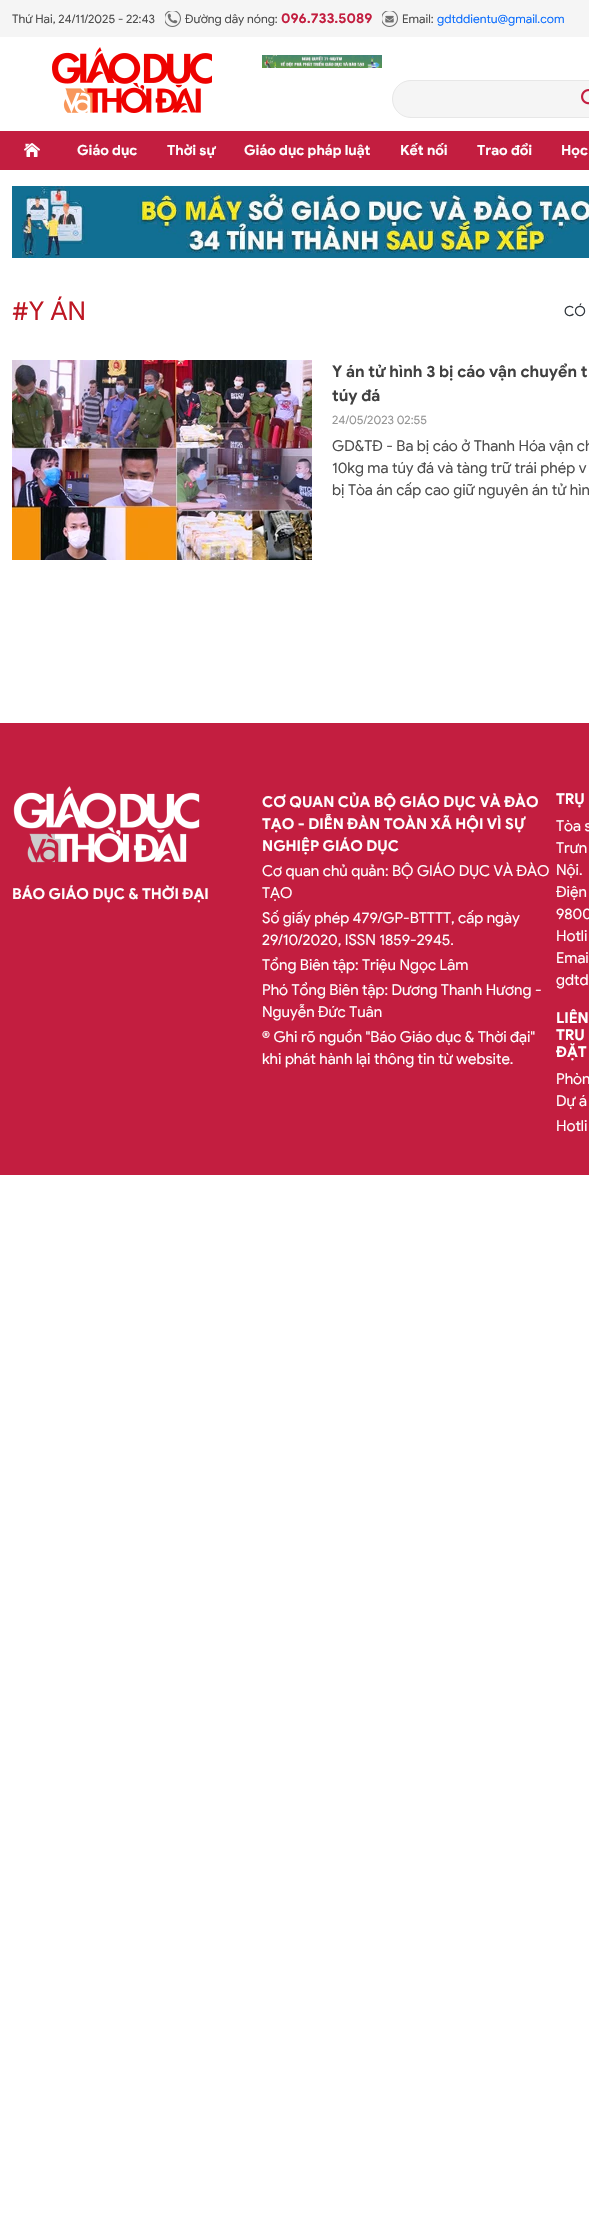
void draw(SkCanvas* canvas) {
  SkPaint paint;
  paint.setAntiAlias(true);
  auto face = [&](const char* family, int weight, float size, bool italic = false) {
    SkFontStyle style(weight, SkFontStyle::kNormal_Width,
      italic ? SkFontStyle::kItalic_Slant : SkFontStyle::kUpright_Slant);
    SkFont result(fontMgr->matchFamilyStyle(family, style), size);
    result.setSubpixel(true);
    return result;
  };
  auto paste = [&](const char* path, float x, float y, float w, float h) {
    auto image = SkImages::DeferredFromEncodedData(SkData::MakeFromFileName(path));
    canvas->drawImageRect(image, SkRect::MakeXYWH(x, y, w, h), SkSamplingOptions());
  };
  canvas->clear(0xffffffff);
  paint.setColor(0xfff5f5f5);
  canvas->drawRect(SkRect::MakeXYWH(0, 0, 589, 37), paint);
  paste("img/1.png", 165, 11, 16, 16);
  paste("img/2.png", 382, 11, 16, 16);
  paste("img/3.png", 52, 47, 160, 66);
  paste("img/4.png", 262, 55, 120, 13);
  canvas->drawRoundRect(SkRect::MakeXYWH(392.5f, 80.5f, 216, 37), 18.5f, 18.5f, paint);
  paint.setStroke(true);
  paint.setStrokeWidth(1);
  paint.setColor(0xffe7e7e7);
  canvas->drawRoundRect(SkRect::MakeXYWH(392.5f, 80.5f, 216, 37), 18.5f, 18.5f, paint);
  paste("img/5.png", 581, 89, 8, 16);
  paint.setStroke(false);
  paint.setColor(0xffc31e40);
  canvas->drawRect(SkRect::MakeXYWH(0, 131, 589, 39), paint);
  paste("img/6.png", 24, 143, 16, 14);
  paste("img/7.png", 12, 186, 577, 72);
  paste("img/8.png", 12, 360, 300, 200);
  canvas->drawRect(SkRect::MakeXYWH(0, 723, 589, 452), paint);
  paste("img/9.png", 13, 786, 187, 77);
  auto f0 = face("Google Sans", 400, 12);
  paint.setColor(0xff4e4e4e);
  canvas->drawString("Thứ Hai, 24/11/2025 - 22:43", 12, 23, f0, paint);
  canvas->drawString("Đường dây nóng:", 185, 23, f0, paint);
  auto f1 = face("Google Sans", 700, 14);
  paint.setColor(0xffc31e40);
  canvas->drawString("096.733.5089", 281, 23, f1, paint);
  paint.setColor(0xff4e4e4e);
  canvas->drawString("Email:", 402, 23, f0, paint);
  paint.setColor(0xff0d6efd);
  canvas->drawString("gdtddientu@gmail.com", 437, 23, f0, paint);
  paint.setColor(0xffffffff);
  {
    const struct { const char* s; float x, y; } items[] = {
      {"Giáo dục", 77, 155},
      {"Thời sự", 167, 155},
      {"Giáo dục pháp luật", 244, 155},
      {"Kết nối", 400, 155},
      {"Trao đổi", 477, 155},
      {"Học", 561, 155},
    };
    for (auto [s, x, y] : items) {
      canvas->drawString(s, x, y, f1, paint);
    }
  }
  auto f2 = face("Google Sans", 400, 26);
  paint.setColor(0xffbd1723);
  canvas->drawString("#Y ÁN", 12, 320, f2, paint);
  auto f3 = face("Google Sans", 400, 14);
  paint.setColor(0xff343a40);
  canvas->drawString("CÓ", 564, 316, f3, paint);
  auto f4 = face("Google Sans", 700, 16);
  paint.setColor(0xff404040);
  canvas->drawString("Y án tử hình 3 bị cáo vận chuyển t", 332, 377, f4, paint);
  canvas->drawString("túy đá", 332, 401, f4, paint);
  paint.setColor(0xff959595);
  canvas->drawString("24/05/2023 02:55", 332, 424, f0, paint);
  auto f5 = face("Google Sans", 400, 15);
  paint.setColor(0xff4e4e4e);
  {
    const struct { const char* s; float x, y; } items[] = {
      {"GD&TĐ - Ba bị cáo ở Thanh Hóa vận ch", 332, 451},
      {"10kg ma túy đá và tàng trữ trái phép v", 332, 473},
      {"bị Tòa án cấp cao giữ nguyên án tử hìn", 332, 495},
    };
    for (auto [s, x, y] : items) {
      canvas->drawString(s, x, y, f5, paint);
    }
  }
  auto f6 = face("Google Sans", 700, 15);
  paint.setColor(0xffffffff);
  {
    const struct { const char* s; float x, y; } items[] = {
      {"BÁO GIÁO DỤC & THỜI ĐẠI", 12, 899},
      {"CƠ QUAN CỦA BỘ GIÁO DỤC VÀ ĐÀO", 262, 807},
      {"TẠO - DIỄN ĐÀN TOÀN XÃ HỘI VÌ SỰ", 262, 829},
      {"NGHIỆP GIÁO DỤC", 262, 851},
    };
    for (auto [s, x, y] : items) {
      canvas->drawString(s, x, y, f6, paint);
    }
  }
  {
    const struct { const char* s; float x, y; } items[] = {
      {"Cơ quan chủ quản: BỘ GIÁO DỤC VÀ ĐÀO", 262, 876},
      {"TẠO", 262, 898},
      {"Số giấy phép 479/GP-BTTTT, cấp ngày", 262, 923},
      {"29/10/2020, ISSN 1859-2945.", 262, 945},
      {"Tổng Biên tập: Triệu Ngọc Lâm", 262, 970},
      {"Phó Tổng Biên tập: Dương Thanh Hương -", 262, 995},
      {"Nguyễn Đức Tuân", 262, 1017},
      {"® Ghi rõ nguồn \"Báo Giáo dục & Thời đại\"", 262, 1042},
      {"khi phát hành lại thông tin từ website.", 262, 1064},
    };
    for (auto [s, x, y] : items) {
      canvas->drawString(s, x, y, f5, paint);
    }
  }
  canvas->drawString("TRỤ", 556, 804, f6, paint);
  {
    const struct { const char* s; float x, y; } items[] = {
      {"Tòa s", 556, 831},
      {"Trưn", 556, 853},
      {"Nội.", 556, 875},
      {"Điện", 556, 897},
      {"9800", 556, 919},
      {"Hotli", 556, 941},
      {"Emai", 556, 963},
      {"gdtd", 556, 985},
    };
    for (auto [s, x, y] : items) {
      canvas->drawString(s, x, y, f5, paint);
    }
  }
  {
    const struct { const char* s; float x, y; } items[] = {
      {"LIÊN", 556, 1023},
      {"TRU", 556, 1040},
      {"ĐẶT", 556, 1057},
    };
    for (auto [s, x, y] : items) {
      canvas->drawString(s, x, y, f6, paint);
    }
  }
  {
    const struct { const char* s; float x, y; } items[] = {
      {"Phòn", 556, 1084},
      {"Dự á", 556, 1106},
      {"Hotli", 556, 1131},
    };
    for (auto [s, x, y] : items) {
      canvas->drawString(s, x, y, f5, paint);
    }
  }
}
